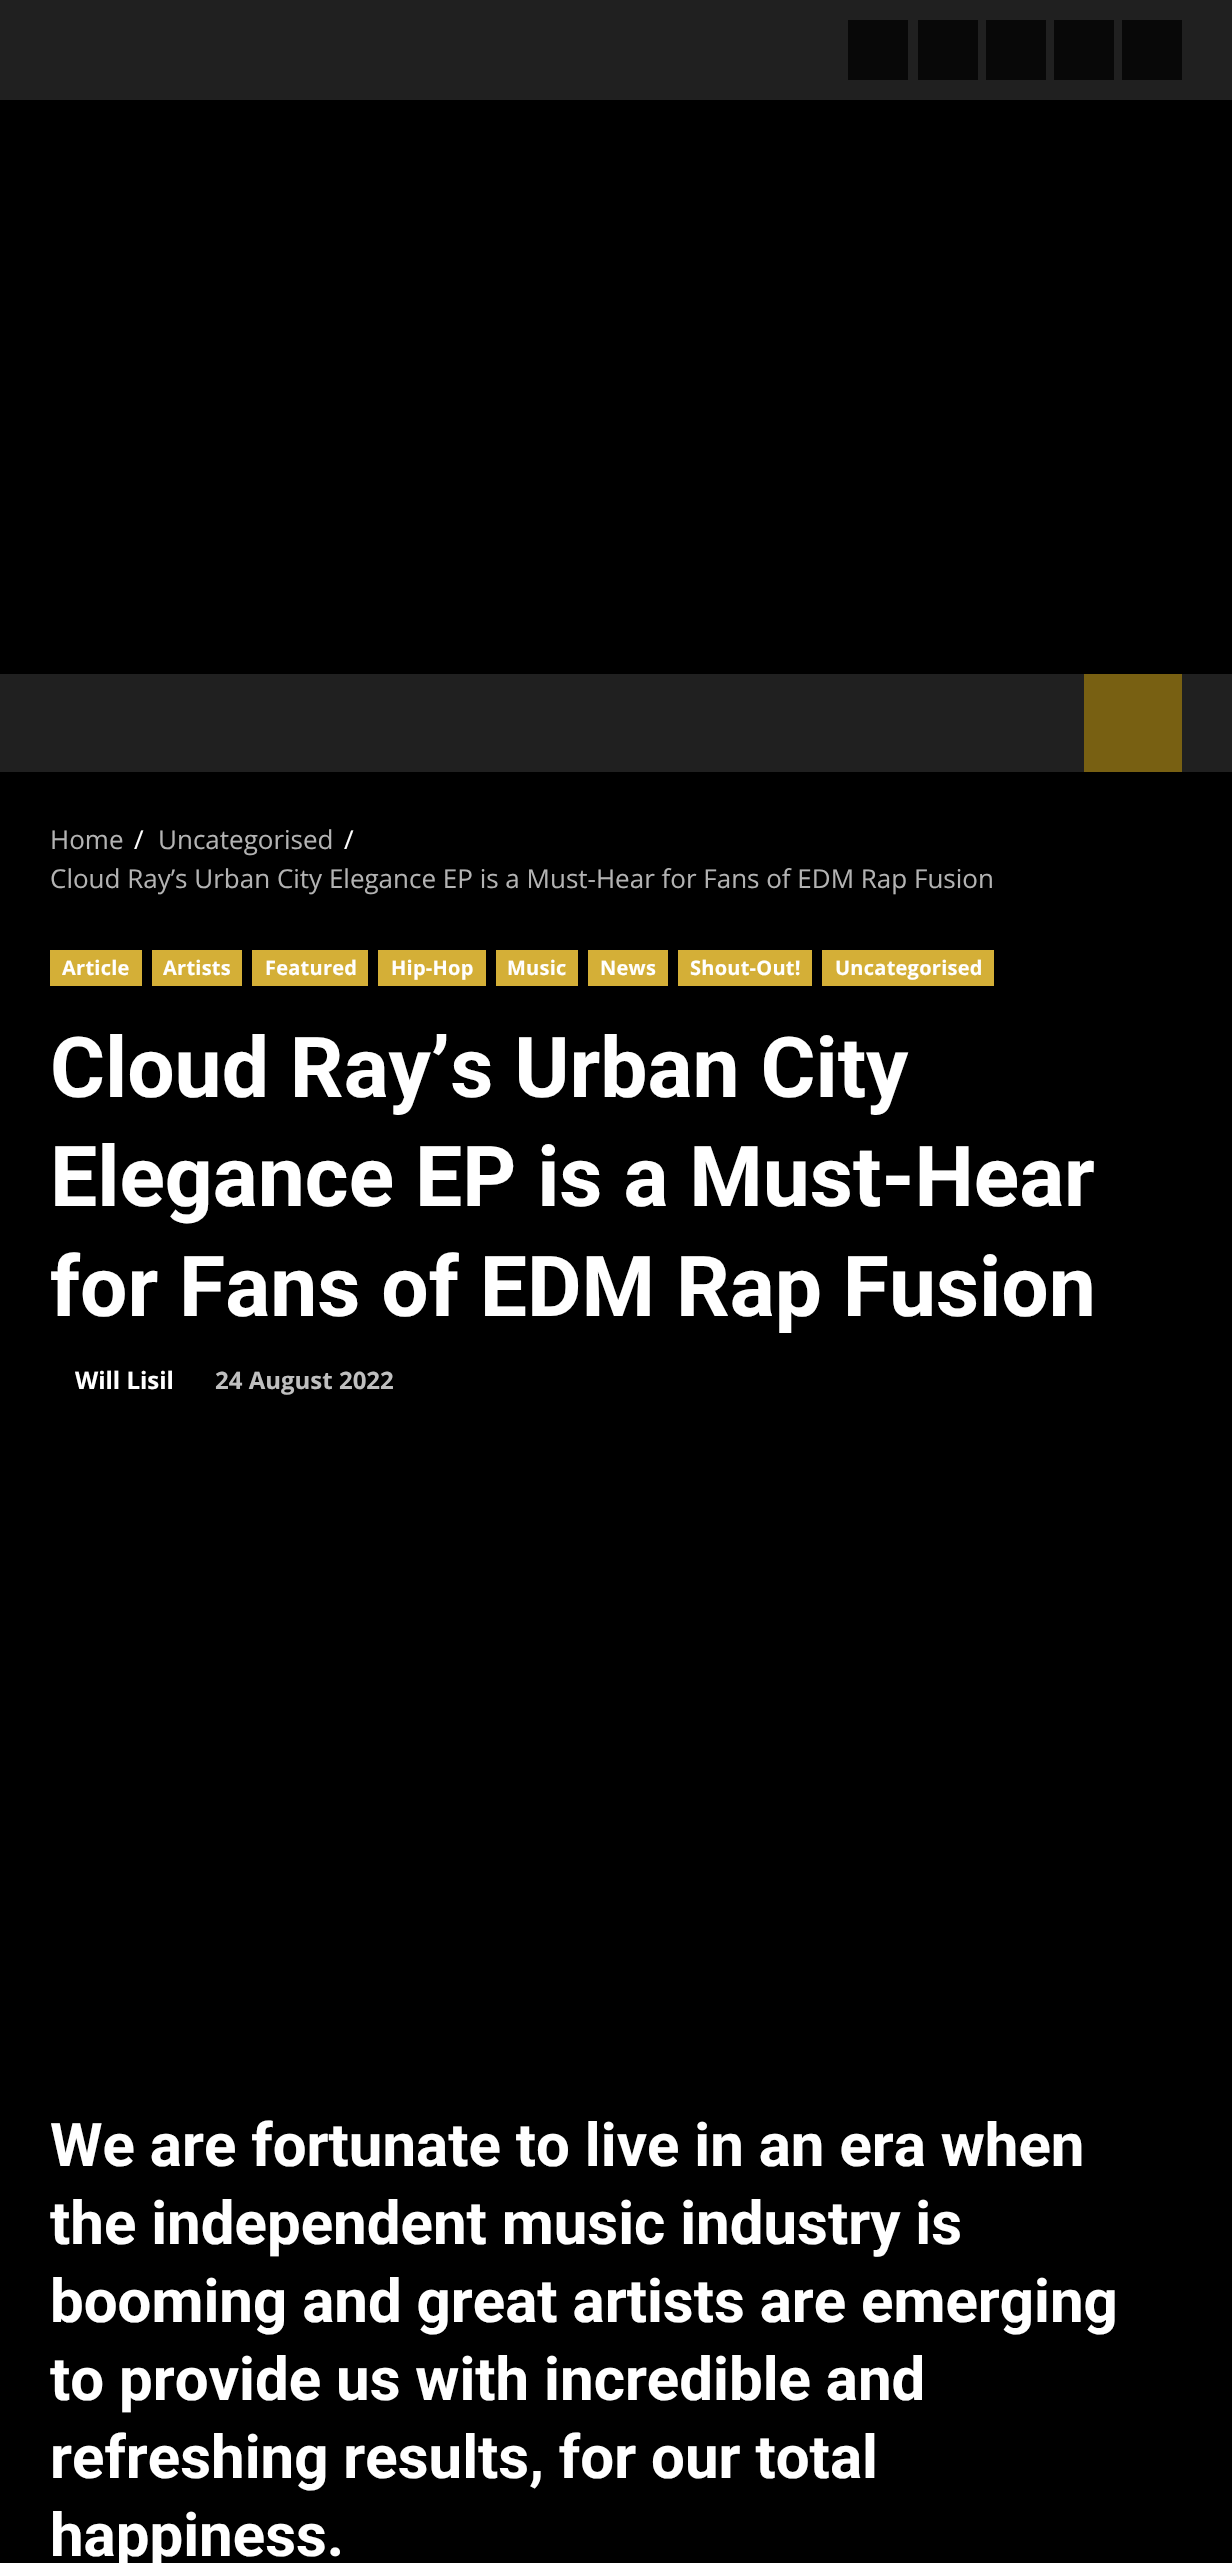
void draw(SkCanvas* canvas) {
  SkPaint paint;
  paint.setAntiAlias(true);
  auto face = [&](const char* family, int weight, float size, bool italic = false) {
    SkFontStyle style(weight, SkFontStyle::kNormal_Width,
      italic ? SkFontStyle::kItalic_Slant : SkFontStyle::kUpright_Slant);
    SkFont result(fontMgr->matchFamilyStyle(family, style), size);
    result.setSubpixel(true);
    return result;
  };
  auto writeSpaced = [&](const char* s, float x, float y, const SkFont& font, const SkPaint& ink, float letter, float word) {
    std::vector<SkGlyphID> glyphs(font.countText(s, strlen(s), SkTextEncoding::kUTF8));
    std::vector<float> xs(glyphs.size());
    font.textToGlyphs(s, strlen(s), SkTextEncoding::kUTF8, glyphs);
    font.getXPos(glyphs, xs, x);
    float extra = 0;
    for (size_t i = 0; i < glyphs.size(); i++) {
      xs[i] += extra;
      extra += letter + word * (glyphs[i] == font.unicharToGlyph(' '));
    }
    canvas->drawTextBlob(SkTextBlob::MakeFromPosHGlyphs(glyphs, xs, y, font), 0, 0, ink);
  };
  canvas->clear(0xff000000);
  {
    const struct { float x, y, w, h; SkColor color; } items[] = {
      {0, 0, 1232, 100, 0xff202020},
      {848, 20, 60, 60, 0xff080808},
      {918, 20, 60, 60, 0xff080808},
      {986, 20, 60, 60, 0xff080808},
      {1054, 20, 60, 60, 0xff080808},
      {1122, 20, 60, 60, 0xff080808},
      {0, 674, 1232, 98, 0xff202020},
      {1084, 674, 98, 98, 0xff786012},
      {50, 950, 92, 36, 0xffd4af37},
      {152, 950, 90, 36, 0xffd4af37},
      {252, 950, 116, 36, 0xffd4af37},
      {378, 950, 108, 36, 0xffd4af37},
      {496, 950, 82, 36, 0xffd4af37},
      {588, 950, 80, 36, 0xffd4af37},
      {678, 950, 134, 36, 0xffd4af37},
      {822, 950, 172, 36, 0xffd4af37},
    };
    for (auto [x, y, w, h, color] : items) {
      paint.setColor(color);
      canvas->drawRect(SkRect::MakeXYWH(x, y, w, h), paint);
    }
  }
  auto f0 = face("Open Sans", 400, 26);
  paint.setColor(0xffb3b3b3);
  canvas->drawString("Home", 50, 849, f0, paint);
  paint.setColor(0xffffffff);
  canvas->drawString("/", 134, 849, f0, paint);
  paint.setColor(0xffb3b3b3);
  canvas->drawString("Uncategorised", 158, 849, f0, paint);
  paint.setColor(0xffffffff);
  canvas->drawString("/", 344, 849, f0, paint);
  paint.setColor(0xffb3b3b3);
  canvas->drawString("Cloud Ray’s Urban City Elegance EP is a Must-Hear for Fans of EDM Rap Fusion", 50, 888, f0, paint);
  auto f1 = face("Open Sans", 700, 20);
  paint.setColor(0xffffffff);
  {
    const struct { const char* s; float x, y; } items[] = {
      {"Article", 62, 975},
      {"Artists", 163, 975},
      {"Featured", 265, 975},
      {"Hip-Hop", 391, 975},
      {"Music", 507, 975},
      {"News", 600, 975},
      {"Shout-Out!", 690, 975},
      {"Uncategorised", 835, 975},
    };
    for (auto [s, x, y] : items) {
      writeSpaced(s, x, y, f1, paint, 0.25f, 0);
    }
  }
  auto f2 = face("Roboto", 700, 84);
  {
    const struct { const char* s; float x, y; } items[] = {
      {"Cloud Ray’s Urban City", 50, 1097},
      {"Elegance EP is a Must-Hear", 50, 1206},
      {"for Fans of EDM Rap Fusion", 50, 1316},
    };
    for (auto [s, x, y] : items) {
      canvas->drawString(s, x, y, f2, paint);
    }
  }
  auto f3 = face("Open Sans", 700, 24);
  canvas->drawString("Will Lisil", 75, 1389, f3, paint);
  paint.setColor(0xffbfbfbf);
  canvas->drawString("24 August 2022", 215, 1389, f3, paint);
  auto f4 = face("Roboto", 700, 60);
  paint.setColor(0xffffffff);
  {
    const struct { const char* s; float x, y; } items[] = {
      {"We are fortunate to live in an era when", 50, 2166},
      {"the independent music industry is", 50, 2244},
      {"booming and great artists are emerging", 50, 2322},
      {"to provide us with incredible and", 50, 2400},
      {"refreshing results, for our total", 50, 2478},
      {"happiness.", 50, 2556},
    };
    for (auto [s, x, y] : items) {
      canvas->drawString(s, x, y, f4, paint);
    }
  }
}
